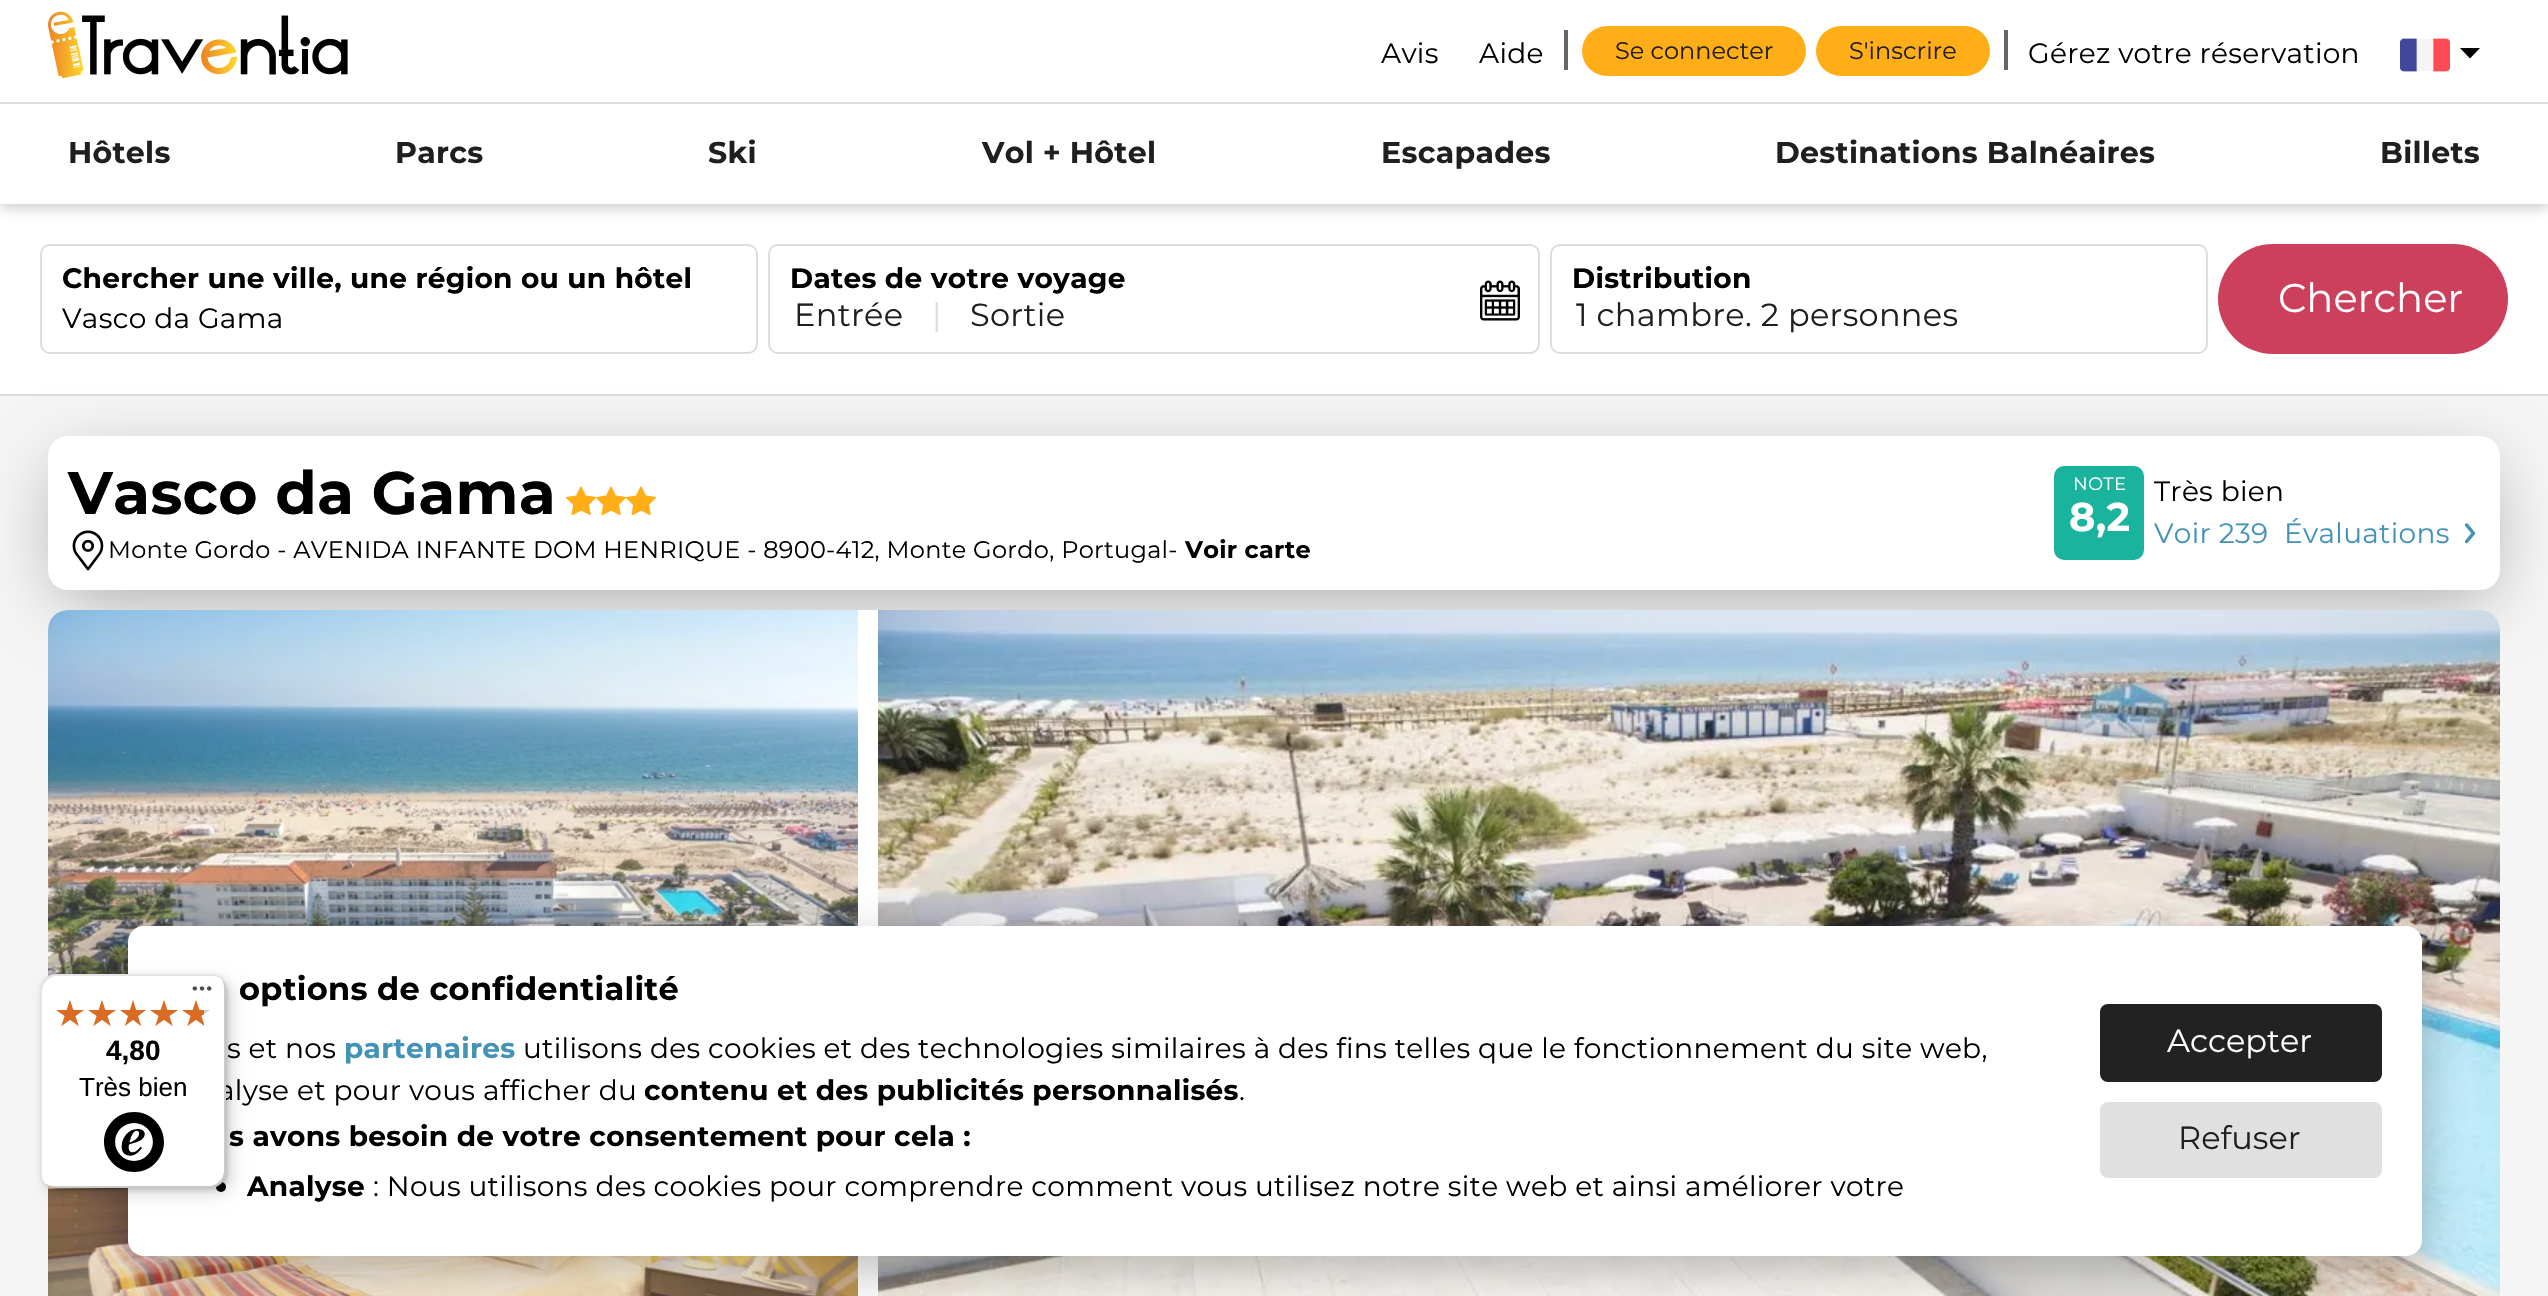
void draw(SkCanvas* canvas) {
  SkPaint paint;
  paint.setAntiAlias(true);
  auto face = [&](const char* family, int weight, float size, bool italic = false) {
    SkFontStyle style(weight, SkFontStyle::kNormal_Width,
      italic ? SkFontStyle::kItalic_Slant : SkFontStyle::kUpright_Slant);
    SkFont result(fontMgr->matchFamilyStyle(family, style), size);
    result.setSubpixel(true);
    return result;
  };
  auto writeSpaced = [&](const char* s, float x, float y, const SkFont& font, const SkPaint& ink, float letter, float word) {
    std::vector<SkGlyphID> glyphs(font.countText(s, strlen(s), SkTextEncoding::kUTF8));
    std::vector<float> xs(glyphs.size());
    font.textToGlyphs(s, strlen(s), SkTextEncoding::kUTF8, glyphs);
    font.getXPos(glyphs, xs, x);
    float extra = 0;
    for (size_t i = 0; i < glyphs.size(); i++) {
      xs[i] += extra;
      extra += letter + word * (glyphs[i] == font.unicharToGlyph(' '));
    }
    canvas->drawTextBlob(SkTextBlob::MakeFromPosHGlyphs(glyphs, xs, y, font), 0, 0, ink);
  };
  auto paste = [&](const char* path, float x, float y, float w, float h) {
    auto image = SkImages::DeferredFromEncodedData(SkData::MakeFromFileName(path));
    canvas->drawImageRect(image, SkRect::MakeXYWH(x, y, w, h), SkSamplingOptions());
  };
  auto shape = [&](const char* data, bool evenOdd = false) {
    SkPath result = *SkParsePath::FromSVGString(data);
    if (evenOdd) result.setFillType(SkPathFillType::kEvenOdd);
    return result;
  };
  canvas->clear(0xfff5f5f5);
  paint.setColor(0xffffffff);
  canvas->drawRect(SkRect::MakeXYWH(0, 204, 2548, 190), paint);
  paint.setColor(0x33000000);
  paint.setMaskFilter(SkMaskFilter::MakeBlur(kNormal_SkBlurStyle, 6));
  canvas->drawRect(SkRect::MakeXYWH(0, 4, 2548, 204), paint);
  paint.setMaskFilter(nullptr);
  paint.setColor(0xffffffff);
  canvas->drawRect(SkRect::MakeXYWH(0, 0, 2548, 204), paint);
  paste("img/1.png", 48, 11, 300, 68);
  paint.setColor(0xff666666);
  canvas->drawRect(SkRect::MakeXYWH(1564, 30, 4, 40), paint);
  paint.setColor(0xffffae17);
  canvas->drawRoundRect(SkRect::MakeXYWH(1582, 26, 224, 50), 25, 25, paint);
  canvas->drawRoundRect(SkRect::MakeXYWH(1816, 26, 174, 50), 25, 25, paint);
  paint.setColor(0xff666666);
  canvas->drawRect(SkRect::MakeXYWH(2004, 30, 4, 40), paint);
  paste("img/2.png", 2400, 38, 50, 34);
  paint.setColor(0xff000000);
  canvas->drawPath(shape("M2470 58.5L2460 48H2480Z"), paint);
  paint.setColor(0xffdddddd);
  canvas->drawRect(SkRect::MakeXYWH(0, 102, 2548, 2), paint);
  canvas->drawRect(SkRect::MakeXYWH(0, 394, 2548, 2), paint);
  paint.setStroke(true);
  paint.setStrokeWidth(2);
  canvas->drawRoundRect(SkRect::MakeXYWH(41, 245, 716, 108), 9, 9, paint);
  canvas->drawRoundRect(SkRect::MakeXYWH(769, 245, 770, 108), 9, 9, paint);
  paste("img/3.png", 1480, 280, 40, 41);
  canvas->drawRoundRect(SkRect::MakeXYWH(1551, 245, 656, 108), 9, 9, paint);
  paint.setStroke(false);
  paint.setColor(0xffcd405b);
  canvas->drawRoundRect(SkRect::MakeXYWH(2218, 244, 290, 110), 55, 55, paint);
  paint.setColor(0x54000000);
  paint.setMaskFilter(SkMaskFilter::MakeBlur(kNormal_SkBlurStyle, 35));
  canvas->drawRoundRect(SkRect::MakeXYWH(60, 466, 2428, 130), 8, 8, paint);
  paint.setMaskFilter(nullptr);
  paint.setColor(0xffffffff);
  canvas->drawRoundRect(SkRect::MakeXYWH(48, 436, 2452, 154), 20, 20, paint);
  paste("img/4.png", 566, 486, 30, 30);
  paste("img/4.png", 596, 486, 30, 30);
  paste("img/4.png", 626, 486, 30, 30);
  paste("img/5.png", 72, 530, 32, 41);
  paint.setColor(0xff1ab39e);
  canvas->drawRoundRect(SkRect::MakeXYWH(2056, 468, 86, 90), 8, 8, paint);
  paint.setStroke(true);
  paint.setStrokeWidth(4);
  canvas->drawRoundRect(SkRect::MakeXYWH(2056, 468, 86, 90), 8, 8, paint);
  paste("img/6.png", 2464, 523, 12, 21);
  paint.setStroke(false);
  paint.setColor(0xffffffff);
  canvas->drawRoundRect(SkRect::MakeXYWH(48, 610, 2452, 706), 20, 20, paint);
  paste("img/7.png", 48, 610, 810, 367);
  paste("img/8.png", 48, 1185, 810, 111);
  paste("img/9.png", 878, 610, 1622, 686);
  paint.setColor(0x40000000);
  paint.setMaskFilter(SkMaskFilter::MakeBlur(kNormal_SkBlurStyle, 24));
  canvas->drawRoundRect(SkRect::MakeXYWH(128, 942, 2294, 330), 16, 16, paint);
  paint.setMaskFilter(nullptr);
  paint.setColor(0xffffffff);
  canvas->drawRoundRect(SkRect::MakeXYWH(128, 926, 2294, 330), 16, 16, paint);
  paint.setColor(0xff000000);
  canvas->drawCircle(221, 1187, 5, paint);
  paint.setColor(0x26000000);
  paint.setMaskFilter(SkMaskFilter::MakeBlur(kNormal_SkBlurStyle, 8));
  canvas->drawRoundRect(SkRect::MakeXYWH(46, 980, 186, 214), 16, 16, paint);
  paint.setMaskFilter(nullptr);
  paint.setMaskFilter(SkMaskFilter::MakeBlur(kNormal_SkBlurStyle, 2));
  canvas->drawRoundRect(SkRect::MakeXYWH(42, 976, 186, 214), 16, 16, paint);
  paint.setMaskFilter(nullptr);
  paint.setColor(0xff222222);
  canvas->drawRoundRect(SkRect::MakeXYWH(2100, 1004, 282, 78), 8, 8, paint);
  paint.setColor(0xffe0e0e0);
  canvas->drawRoundRect(SkRect::MakeXYWH(2100, 1102, 282, 76), 8, 8, paint);
  auto f0 = face("Montserrat", 400, 28);
  paint.setColor(0xff000000);
  writeSpaced("Avis", 1381, 63, f0, paint, 0.3f, 0);
  writeSpaced("Aide", 1479, 63, f0, paint, 0.3f, 0);
  auto f1 = face("Montserrat", 400, 24);
  paint.setColor(0xff1f1f1f);
  canvas->drawString("Se connecter", 1615, 59, f1, paint);
  canvas->drawString("S'inscrire", 1849, 59, f1, paint);
  paint.setColor(0xff000000);
  writeSpaced("Gérez votre réservation", 2028, 63, f0, paint, 0.3f, 0);
  auto f2 = face("Montserrat", 700, 30);
  paint.setColor(0xff1f1f1f);
  {
    const struct { const char* s; float x, y; } items[] = {
      {"Hôtels", 68, 163},
      {"Parcs", 395, 163},
      {"Ski", 708, 163},
      {"Vol + Hôtel", 982, 163},
      {"Escapades", 1381, 163},
      {"Destinations Balnéaires", 1775, 163},
      {"Billets", 2380, 163},
    };
    for (auto [s, x, y] : items) {
      writeSpaced(s, x, y, f2, paint, 0.3f, 0);
    }
  }
  auto f3 = face("Montserrat", 700, 28);
  paint.setColor(0xff000000);
  writeSpaced("Chercher une ville, une région ou un hôtel", 62, 288, f3, paint, 0.3f, 0);
  writeSpaced("Vasco da Gama", 62, 328, f0, paint, 0.3f, 0);
  writeSpaced("Dates de votre voyage", 790, 288, f3, paint, 0.3f, 0);
  auto f4 = face("Montserrat", 400, 32);
  paint.setColor(0xff1f1f1f);
  writeSpaced("Entrée", 794, 326, f4, paint, 0.3f, 0);
  paint.setColor(0xffdddddd);
  writeSpaced("|", 932, 326, f4, paint, 0.3f, 0);
  paint.setColor(0xff1f1f1f);
  writeSpaced("Sortie", 970, 326, f4, paint, 0.3f, 0);
  paint.setColor(0xff000000);
  writeSpaced("Distribution", 1572, 288, f3, paint, 0.3f, 0);
  canvas->save();
  canvas->clipRect(SkRect::MakeXYWH(1576, 292, 606, 48));
  paint.setColor(0xff1f1f1f);
  writeSpaced("1 chambre. 2 personnes", 1576, 326, f4, paint, 0.3f, 0);
  canvas->restore();
  auto f5 = face("Montserrat", 400, 40);
  paint.setColor(0xffffffff);
  canvas->drawString("Chercher", 2278, 312, f5, paint);
  auto f6 = face("Montserrat", 700, 60);
  paint.setColor(0xff000000);
  writeSpaced("Vasco da Gama", 68, 514, f6, paint, 0.3f, 0);
  writeSpaced("Monte Gordo - AVENIDA INFANTE DOM HENRIQUE - 8900-412, Monte Gordo, Portugal-", 108, 558, f1, paint, 0.3f, 0);
  auto f7 = face("Montserrat", 700, 24);
  writeSpaced("Voir carte", 1185, 558, f7, paint, 0.3f, 0);
  auto f8 = face("Montserrat", 400, 18);
  paint.setColor(0xffffffff);
  writeSpaced("NOTE", 2073, 490, f8, paint, 0.3f, 0);
  auto f9 = face("Montserrat", 700, 40);
  writeSpaced("8,2", 2069, 531, f9, paint, 0.3f, 0);
  paint.setColor(0xff000000);
  writeSpaced("Très bien", 2154, 501, f0, paint, 0.3f, 0);
  paint.setColor(0xff4493b7);
  writeSpaced("Voir 239", 2154, 543, f0, paint, 0.3f, 0);
  writeSpaced("Évaluations", 2284, 543, f0, paint, 0.3f, 0);
  auto f10 = face("Montserrat", 700, 32);
  paint.setColor(0xff000000);
  writeSpaced("options de confidentialité", 239, 1000, f10, paint, 0.3f, 0);
  writeSpaced("s et nos", 227, 1058, f0, paint, 0.3f, 0);
  paint.setColor(0xff4493b7);
  writeSpaced("partenaires", 344, 1058, f3, paint, 0.3f, 0);
  paint.setColor(0xff000000);
  writeSpaced("utilisons des cookies et des technologies similaires à des fins telles que le fonctionnement du site web,", 523, 1058, f0, paint, 0.3f, 0);
  writeSpaced("alyse et pour vous afficher du", 218, 1100, f0, paint, 0.3f, 0);
  paint.setColor(0xffffffff);
  canvas->drawRoundRect(SkRect::MakeXYWH(40, 974, 186, 214), 16, 16, paint);
  paint.setColor(0x1a000000);
  canvas->drawPath(shape("M58 976H212C216 976 219 977 222 979C219 976 215 974 210 974H56C47 974 40 981 40 990V1172C40 1177 42 1181 45 1184C43 1181 42 1178 42 1174V992C42 983 49 976 58 976Z"), paint);
  paint.setColor(0x33000000);
  canvas->drawPath(shape("M44 1183C47 1186 51 1188 56 1188H210C219 1188 226 1181 226 1172V990C226 985 224 981 221 978C223 981 224 984 224 988V1170C224 1179 217 1186 208 1186H54C50 1186 47 1185 44 1183Z"), paint);
  paint.setColor(0x33323232);
  canvas->drawPath(shape("M45 1183C48 1186 52 1188 56 1188H210C219 1188 226 1181 226 1172V990C226 986 224 982 221 979C224 982 225 985 225 989V1171C225 1180 218 1187 209 1187H55C51 1187 48 1186 45 1183Z"), paint);
  paint.setColor(0x4dffffff);
  canvas->drawPath(shape("M45 1183C48 1186 52 1188 56 1188H210C219 1188 226 1181 226 1172V990C226 986 224 982 221 979C224 982 225 985 225 989V1171C225 1180 218 1187 209 1187H55C51 1187 48 1186 45 1183Z"), paint);
  paste("img/10.png", 192, 986, 20, 5);
  paste("img/11.png", 182, 1000, 28, 26);
  paste("img/15.png", 182, 1000, 22, 26);
  paste("img/11.png", 150, 1000, 28, 26);
  paste("img/13.png", 150, 1000, 28, 26);
  paste("img/12.png", 120, 1000, 26, 26);
  paste("img/14.png", 120, 1000, 26, 26);
  paste("img/11.png", 88, 1000, 28, 26);
  paste("img/13.png", 88, 1000, 28, 26);
  paste("img/11.png", 56, 1000, 28, 26);
  paste("img/13.png", 56, 1000, 28, 26);
  paste("img/16.png", 104, 1112, 60, 60);
  auto f11 = face("Liberation Sans", 400, 26);
  paint.setColor(0xff000000);
  canvas->drawString("Très bien", 79, 1096, f11, paint);
  auto f12 = face("Liberation Sans", 700, 28);
  canvas->drawString("4,80", 106, 1060, f12, paint);
  writeSpaced("contenu et des publicités personnalisés", 644, 1100, f3, paint, 0.3f, 0);
  writeSpaced(".", 1239, 1100, f0, paint, 0.3f, 0);
  writeSpaced("s avons besoin de votre consentement pour cela :", 229, 1146, f3, paint, 0.3f, 0);
  writeSpaced("Analyse", 247, 1196, f3, paint, 0.3f, 0);
  writeSpaced(": Nous utilisons des cookies pour comprendre comment vous utilisez notre site web et ainsi améliorer votre", 373, 1196, f0, paint, 0.3f, 0);
  paint.setColor(0xffffffff);
  canvas->drawString("Accepter", 2167, 1052, f4, paint);
  paint.setColor(0xff1f1f1f);
  canvas->drawString("Refuser", 2178, 1149, f4, paint);
}
